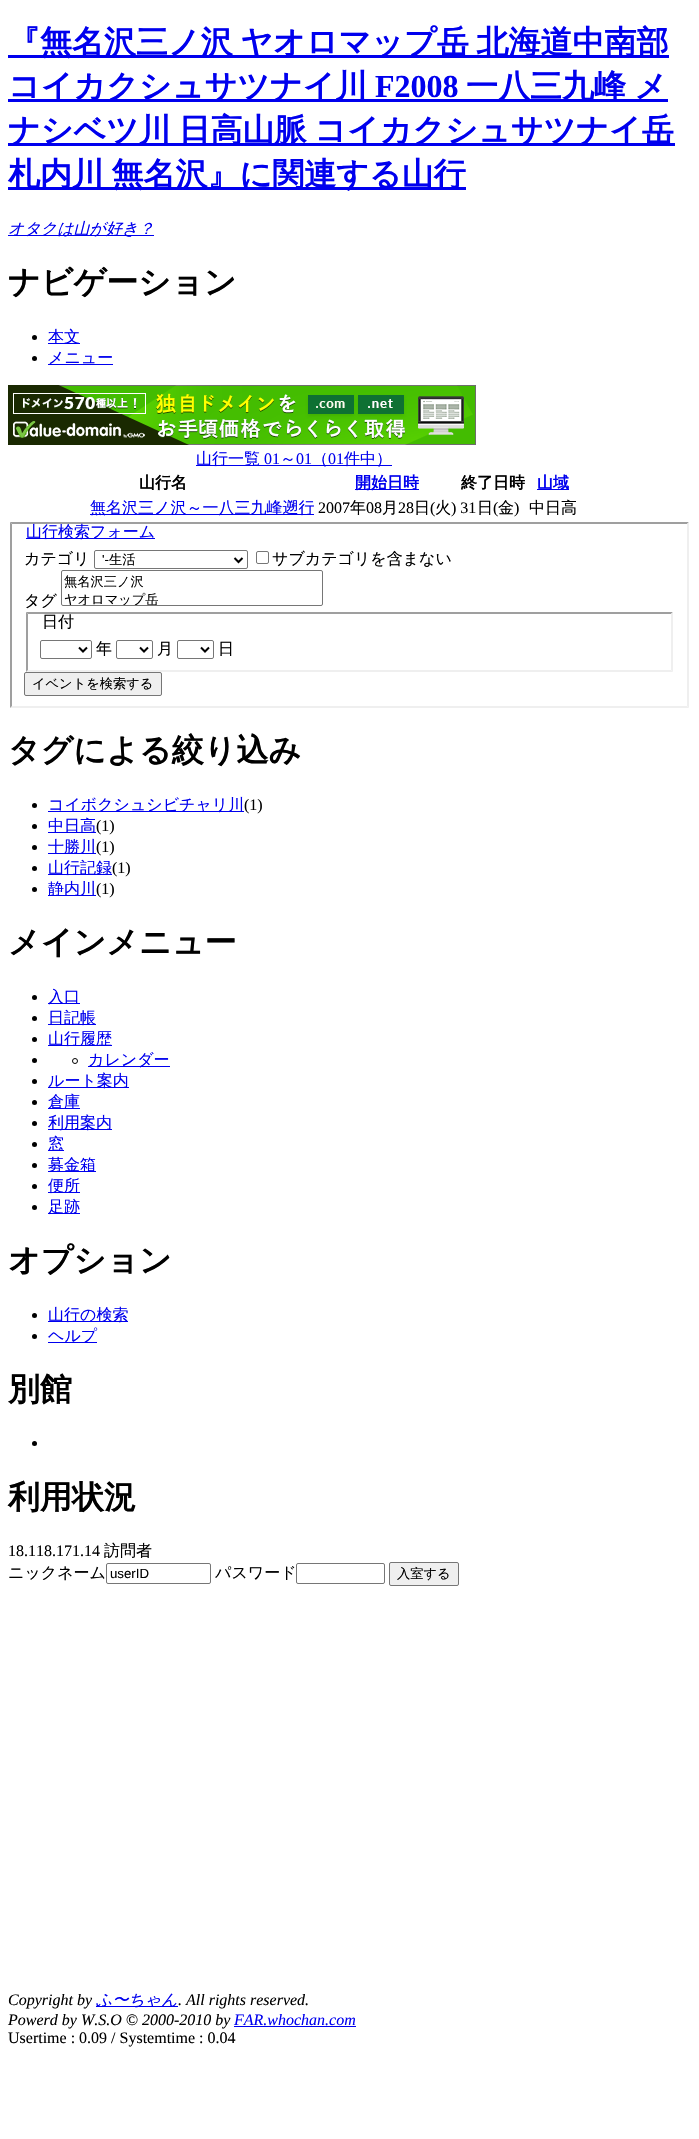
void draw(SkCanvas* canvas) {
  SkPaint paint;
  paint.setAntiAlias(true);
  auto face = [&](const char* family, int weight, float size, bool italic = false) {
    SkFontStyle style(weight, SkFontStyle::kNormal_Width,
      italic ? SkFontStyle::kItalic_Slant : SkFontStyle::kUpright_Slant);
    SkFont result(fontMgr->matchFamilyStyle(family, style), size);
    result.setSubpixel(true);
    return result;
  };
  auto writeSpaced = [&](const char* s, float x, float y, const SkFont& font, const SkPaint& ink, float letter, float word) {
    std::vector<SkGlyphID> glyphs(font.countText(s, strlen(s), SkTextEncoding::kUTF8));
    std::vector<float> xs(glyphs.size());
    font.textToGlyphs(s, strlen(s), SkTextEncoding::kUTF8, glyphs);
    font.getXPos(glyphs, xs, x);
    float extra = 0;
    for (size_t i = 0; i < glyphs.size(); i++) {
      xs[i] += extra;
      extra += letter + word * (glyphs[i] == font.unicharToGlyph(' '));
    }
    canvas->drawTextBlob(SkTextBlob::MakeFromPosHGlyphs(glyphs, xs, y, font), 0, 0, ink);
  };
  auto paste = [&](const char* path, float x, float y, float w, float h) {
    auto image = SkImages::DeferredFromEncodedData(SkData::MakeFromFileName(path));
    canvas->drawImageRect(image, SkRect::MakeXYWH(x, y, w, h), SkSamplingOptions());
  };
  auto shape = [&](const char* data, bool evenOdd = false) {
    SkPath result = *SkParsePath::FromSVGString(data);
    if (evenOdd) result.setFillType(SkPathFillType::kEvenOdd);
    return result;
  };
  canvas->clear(0xffffffff);
  {
    const struct { float x, y, w, h; SkColor color; } items[] = {
      {8, 55, 661, 3, 0xff0000ee},
      {8, 99, 660, 3, 0xff0000ee},
      {8, 143, 667, 3, 0xff0000ee},
      {8, 187, 458, 3, 0xff0000ee},
      {8, 235, 146, 1, 0xff0000ee},
    };
    for (auto [x, y, w, h, color] : items) {
      paint.setColor(color);
      canvas->drawRect(SkRect::MakeXYWH(x, y, w, h), paint);
    }
  }
  paint.setColor(0xff000000);
  canvas->drawCircle(34.5f, 337.5f, 2.5f, paint);
  paint.setColor(0xff0000ee);
  canvas->drawRect(SkRect::MakeXYWH(48, 343, 32, 1), paint);
  paint.setColor(0xff000000);
  canvas->drawCircle(34.5f, 358.5f, 2.5f, paint);
  paint.setColor(0xff0000ee);
  canvas->drawRect(SkRect::MakeXYWH(48, 364, 65, 1), paint);
  paste("img/1.png", 8, 385, 468, 60);
  {
    const struct { float x, y, w, h; SkColor color; } items[] = {
      {196, 465, 196, 1, 0xff0000ee},
      {355, 489, 64, 1, 0xff0000ee},
      {537, 489, 32, 1, 0xff0000ee},
      {90, 514, 224, 1, 0xff0000ee},
    };
    for (auto [x, y, w, h, color] : items) {
      paint.setColor(color);
      canvas->drawRect(SkRect::MakeXYWH(x, y, w, h), paint);
    }
  }
  paint.setColor(0xff9f9f9f);
  canvas->drawPath(shape("M10 522H689L687 524H12Z"), paint);
  paint.setColor(0xffefefef);
  canvas->drawPath(shape("M689 522V708L687 706V524Z"), paint);
  canvas->drawPath(shape("M689 708H10L12 706H687Z"), paint);
  paint.setColor(0xff9f9f9f);
  canvas->drawPath(shape("M10 708V522L12 524V706Z"), paint);
  paint.setColor(0xff0000ee);
  canvas->drawRect(SkRect::MakeXYWH(26, 538, 129, 1), paint);
  paint.setStroke(true);
  paint.setStrokeWidth(1);
  paint.setColor(0xff767676);
  canvas->drawRoundRect(SkRect::MakeXYWH(94.5f, 550.5f, 153, 18), 1.5f, 1.5f, paint);
  paint.setStrokeWidth(2);
  paint.setColor(0xff000000);
  canvas->drawPath(shape("M234.5 558L238.5 562L242.5 558"), paint);
  paint.setStrokeWidth(1);
  paint.setColor(0xff767676);
  canvas->drawRoundRect(SkRect::MakeXYWH(256.5f, 551.5f, 12, 12), 1.5f, 1.5f, paint);
  canvas->drawRoundRect(SkRect::MakeXYWH(61.5f, 570.5f, 261, 35), 1.5f, 1.5f, paint);
  paint.setStroke(false);
  paint.setColor(0xff9f9f9f);
  canvas->drawPath(shape("M26 612H673L671 614H28Z"), paint);
  paint.setColor(0xffefefef);
  canvas->drawPath(shape("M673 612V672L671 670V614Z"), paint);
  canvas->drawPath(shape("M673 672H26L28 670H671Z"), paint);
  paint.setColor(0xff9f9f9f);
  canvas->drawPath(shape("M26 672V612L28 614V670Z"), paint);
  paint.setStroke(true);
  paint.setColor(0xff767676);
  canvas->drawRoundRect(SkRect::MakeXYWH(40.5f, 640.5f, 51, 18), 1.5f, 1.5f, paint);
  paint.setStrokeWidth(2);
  paint.setColor(0xff000000);
  canvas->drawPath(shape("M79 647.5L83 651.5L87 647.5"), paint);
  paint.setStrokeWidth(1);
  paint.setColor(0xff767676);
  canvas->drawRoundRect(SkRect::MakeXYWH(116.5f, 640.5f, 36, 18), 1.5f, 1.5f, paint);
  paint.setStrokeWidth(2);
  paint.setColor(0xff000000);
  canvas->drawPath(shape("M140 647.5L144 651.5L148 647.5"), paint);
  paint.setStrokeWidth(1);
  paint.setColor(0xff767676);
  canvas->drawRoundRect(SkRect::MakeXYWH(177.5f, 640.5f, 36, 18), 1.5f, 1.5f, paint);
  paint.setStrokeWidth(2);
  paint.setColor(0xff000000);
  canvas->drawPath(shape("M201 647.5L205 651.5L209 647.5"), paint);
  paint.setStroke(false);
  paint.setColor(0xffefefef);
  canvas->drawRoundRect(SkRect::MakeXYWH(24.5f, 672.5f, 137, 23), 1.5f, 1.5f, paint);
  paint.setStroke(true);
  paint.setStrokeWidth(1);
  paint.setColor(0xff767676);
  canvas->drawRoundRect(SkRect::MakeXYWH(24.5f, 672.5f, 137, 23), 1.5f, 1.5f, paint);
  paint.setStroke(false);
  paint.setColor(0xff000000);
  canvas->drawCircle(34.5f, 805.5f, 2.5f, paint);
  paint.setColor(0xff0000ee);
  canvas->drawRect(SkRect::MakeXYWH(48, 811, 196, 1), paint);
  paint.setColor(0xff000000);
  canvas->drawCircle(34.5f, 826.5f, 2.5f, paint);
  paint.setColor(0xff0000ee);
  canvas->drawRect(SkRect::MakeXYWH(48, 832, 48, 1), paint);
  paint.setColor(0xff000000);
  canvas->drawCircle(34.5f, 847.5f, 2.5f, paint);
  paint.setColor(0xff0000ee);
  canvas->drawRect(SkRect::MakeXYWH(48, 853, 48, 1), paint);
  paint.setColor(0xff000000);
  canvas->drawCircle(34.5f, 868.5f, 2.5f, paint);
  paint.setColor(0xff0000ee);
  canvas->drawRect(SkRect::MakeXYWH(48, 874, 64, 1), paint);
  paint.setColor(0xff000000);
  canvas->drawCircle(34.5f, 889.5f, 2.5f, paint);
  paint.setColor(0xff0000ee);
  canvas->drawRect(SkRect::MakeXYWH(48, 895, 48, 1), paint);
  paint.setColor(0xff000000);
  canvas->drawCircle(34.5f, 997.5f, 2.5f, paint);
  paint.setColor(0xff0000ee);
  canvas->drawRect(SkRect::MakeXYWH(48, 1003, 32, 1), paint);
  paint.setColor(0xff000000);
  canvas->drawCircle(34.5f, 1018.5f, 2.5f, paint);
  paint.setColor(0xff0000ee);
  canvas->drawRect(SkRect::MakeXYWH(48, 1024, 48, 1), paint);
  paint.setColor(0xff000000);
  canvas->drawCircle(34.5f, 1039.5f, 2.5f, paint);
  paint.setColor(0xff0000ee);
  canvas->drawRect(SkRect::MakeXYWH(48, 1045, 64, 1), paint);
  paint.setColor(0xff000000);
  canvas->drawCircle(34.5f, 1060.5f, 2.5f, paint);
  paint.setStroke(true);
  canvas->drawCircle(75, 1061, 2.5f, paint);
  paint.setStroke(false);
  paint.setColor(0xff0000ee);
  canvas->drawRect(SkRect::MakeXYWH(88, 1066, 82, 1), paint);
  paint.setColor(0xff000000);
  canvas->drawCircle(34.5f, 1081.5f, 2.5f, paint);
  paint.setColor(0xff0000ee);
  canvas->drawRect(SkRect::MakeXYWH(48, 1087, 81, 1), paint);
  paint.setColor(0xff000000);
  canvas->drawCircle(34.5f, 1102.5f, 2.5f, paint);
  paint.setColor(0xff0000ee);
  canvas->drawRect(SkRect::MakeXYWH(48, 1108, 32, 1), paint);
  paint.setColor(0xff000000);
  canvas->drawCircle(34.5f, 1123.5f, 2.5f, paint);
  paint.setColor(0xff0000ee);
  canvas->drawRect(SkRect::MakeXYWH(48, 1129, 64, 1), paint);
  paint.setColor(0xff000000);
  canvas->drawCircle(34.5f, 1144.5f, 2.5f, paint);
  paint.setColor(0xff0000ee);
  canvas->drawRect(SkRect::MakeXYWH(48, 1150, 16, 1), paint);
  paint.setColor(0xff000000);
  canvas->drawCircle(34.5f, 1165.5f, 2.5f, paint);
  paint.setColor(0xff0000ee);
  canvas->drawRect(SkRect::MakeXYWH(48, 1171, 48, 1), paint);
  paint.setColor(0xff000000);
  canvas->drawCircle(34.5f, 1186.5f, 2.5f, paint);
  paint.setColor(0xff0000ee);
  canvas->drawRect(SkRect::MakeXYWH(48, 1192, 32, 1), paint);
  paint.setColor(0xff000000);
  canvas->drawCircle(34.5f, 1207.5f, 2.5f, paint);
  paint.setColor(0xff0000ee);
  canvas->drawRect(SkRect::MakeXYWH(48, 1213, 32, 1), paint);
  paint.setColor(0xff000000);
  canvas->drawCircle(34.5f, 1315.5f, 2.5f, paint);
  paint.setColor(0xff0000ee);
  canvas->drawRect(SkRect::MakeXYWH(48, 1321, 80, 1), paint);
  paint.setColor(0xff000000);
  canvas->drawCircle(34.5f, 1336.5f, 2.5f, paint);
  paint.setColor(0xff0000ee);
  canvas->drawRect(SkRect::MakeXYWH(48, 1342, 49, 1), paint);
  paint.setColor(0xff000000);
  canvas->drawCircle(34.5f, 1443.5f, 2.5f, paint);
  paint.setStroke(true);
  paint.setColor(0xff767676);
  canvas->drawRoundRect(SkRect::MakeXYWH(106.5f, 1563.5f, 104, 20), 1.5f, 1.5f, paint);
  canvas->drawRoundRect(SkRect::MakeXYWH(296.5f, 1563.5f, 88, 20), 1.5f, 1.5f, paint);
  paint.setStroke(false);
  paint.setColor(0xffefefef);
  canvas->drawRoundRect(SkRect::MakeXYWH(389.5f, 1562.5f, 69, 23), 1.5f, 1.5f, paint);
  paint.setStroke(true);
  paint.setColor(0xff767676);
  canvas->drawRoundRect(SkRect::MakeXYWH(389.5f, 1562.5f, 69, 23), 1.5f, 1.5f, paint);
  paint.setStroke(false);
  paint.setColor(0xff0000ee);
  canvas->drawRect(SkRect::MakeXYWH(96, 2006, 82, 1), paint);
  canvas->drawRect(SkRect::MakeXYWH(234, 2026, 122, 1), paint);
  auto f0 = face("WenQuanYi Zen Hei", 700, 32);
  writeSpaced("『無名沢三ノ沢 ヤオロマップ岳 北海道中南部", 8, 53, f0, paint, 0, -2);
  canvas->drawString("コイカクシュサツナイ川", 8, 97, f0, paint);
  auto f1 = face("Liberation Serif", 700, 32);
  canvas->drawString("F2008", 375, 97, f1, paint);
  writeSpaced("一八三九峰 メ", 466, 97, f0, paint, 0, -1);
  writeSpaced("ナシベツ川 日高山脈 コイカクシュサツナイ岳", 8, 141, f0, paint, 0, -2);
  writeSpaced("札内川 無名沢』に関連する山行", 8, 185, f0, paint, 0, -2);
  auto f2 = face("WenQuanYi Zen Hei", 500, 16, true);
  canvas->drawString("オタクは山が好き？", 8, 234, f2, paint);
  paint.setColor(0xff000000);
  canvas->drawString("ナビゲーション", 8, 293, f0, paint);
  auto f3 = face("WenQuanYi Zen Hei", 500, 16);
  paint.setColor(0xff0000ee);
  {
    const struct { const char* s; float x, y; } items[] = {
      {"本文", 48, 342},
      {"メニュー", 48, 363},
      {"山行一覧", 196, 464},
    };
    for (auto [s, x, y] : items) {
      canvas->drawString(s, x, y, f3, paint);
    }
  }
  auto f4 = face("Liberation Serif", 400, 16);
  canvas->drawString("01", 264, 464, f4, paint);
  canvas->drawString("～", 280, 464, f3, paint);
  canvas->drawString("01", 296, 464, f4, paint);
  canvas->drawString("（", 312, 464, f3, paint);
  canvas->drawString("01", 328, 464, f4, paint);
  canvas->drawString("件中）", 344, 464, f3, paint);
  auto f5 = face("WenQuanYi Zen Hei", 700, 16);
  paint.setColor(0xff000000);
  canvas->drawString("山行名", 139, 488, f5, paint);
  paint.setColor(0xff0000ee);
  canvas->drawString("開始日時", 355, 488, f5, paint);
  paint.setColor(0xff000000);
  canvas->drawString("終了日時", 461, 488, f5, paint);
  paint.setColor(0xff0000ee);
  canvas->drawString("山域", 537, 488, f5, paint);
  canvas->drawString("無名沢三ノ沢～一八三九峰遡行", 90, 513, f3, paint);
  paint.setColor(0xff000000);
  canvas->drawString("2007", 318, 513, f4, paint);
  canvas->drawString("年", 350, 513, f3, paint);
  canvas->drawString("08", 366, 513, f4, paint);
  canvas->drawString("月", 382, 513, f3, paint);
  canvas->drawString("28", 398, 513, f4, paint);
  canvas->drawString("日", 414, 513, f3, paint);
  canvas->drawString("(", 430, 513, f4, paint);
  canvas->drawString("火", 435, 513, f3, paint);
  canvas->drawString(") 31", 451, 513, f4, paint);
  canvas->drawString("日", 477, 513, f3, paint);
  canvas->drawString("(", 493, 513, f4, paint);
  canvas->drawString("金", 498, 513, f3, paint);
  canvas->drawString(")", 514, 513, f4, paint);
  canvas->drawString("中日高", 529, 513, f3, paint);
  paint.setColor(0xff0000ee);
  canvas->drawString("山行検索フォーム", 26, 537, f3, paint);
  paint.setColor(0xff000000);
  canvas->drawString("カテゴリ", 24, 564, f3, paint);
  auto f6 = face("Liberation Sans", 400, 13.25f);
  canvas->drawString("'-", 102, 564, f6, paint);
  auto f7 = face("WenQuanYi Zen Hei", 500, 13.25f);
  canvas->drawString("生活", 109, 564, f7, paint);
  canvas->drawString("サブカテゴリを含まない", 272, 564, f3, paint);
  canvas->drawString("タグ", 24, 606, f3, paint);
  canvas->drawString("無名沢三ノ沢", 64, 586, f7, paint);
  canvas->save();
  canvas->clipRect(SkRect::MakeXYWH(62, 571, 260, 34));
  canvas->drawString("ヤオロマップ岳", 64, 604, f7, paint);
  canvas->restore();
  {
    const struct { const char* s; float x, y; } items[] = {
      {"日付", 42, 627},
      {"年", 96, 654},
      {"月", 157, 654},
      {"日", 218, 654},
    };
    for (auto [s, x, y] : items) {
      canvas->drawString(s, x, y, f3, paint);
    }
  }
  canvas->drawString("イベントを検索する", 32, 688, f7, paint);
  canvas->drawString("タグによる絞り込み", 8, 761, f0, paint);
  paint.setColor(0xff0000ee);
  canvas->drawString("コイボクシュシビチャリ川", 48, 810, f3, paint);
  paint.setColor(0xff000000);
  canvas->drawString("(1)", 244, 810, f4, paint);
  paint.setColor(0xff0000ee);
  canvas->drawString("中日高", 48, 831, f3, paint);
  paint.setColor(0xff000000);
  canvas->drawString("(1)", 96, 831, f4, paint);
  paint.setColor(0xff0000ee);
  canvas->drawString("十勝川", 48, 852, f3, paint);
  paint.setColor(0xff000000);
  canvas->drawString("(1)", 96, 852, f4, paint);
  paint.setColor(0xff0000ee);
  canvas->drawString("山行記録", 48, 873, f3, paint);
  paint.setColor(0xff000000);
  canvas->drawString("(1)", 112, 873, f4, paint);
  paint.setColor(0xff0000ee);
  canvas->drawString("静内川", 48, 894, f3, paint);
  paint.setColor(0xff000000);
  canvas->drawString("(1)", 96, 894, f4, paint);
  canvas->drawString("メインメニュー", 8, 953, f0, paint);
  paint.setColor(0xff0000ee);
  {
    const struct { const char* s; float x, y; } items[] = {
      {"入口", 48, 1002},
      {"日記帳", 48, 1023},
      {"山行履歴", 48, 1044},
      {"カレンダー", 88, 1065},
      {"ルート案内", 48, 1086},
      {"倉庫", 48, 1107},
      {"利用案内", 48, 1128},
      {"窓", 48, 1149},
      {"募金箱", 48, 1170},
      {"便所", 48, 1191},
      {"足跡", 48, 1212},
    };
    for (auto [s, x, y] : items) {
      canvas->drawString(s, x, y, f3, paint);
    }
  }
  paint.setColor(0xff000000);
  canvas->drawString("オプション", 8, 1271, f0, paint);
  paint.setColor(0xff0000ee);
  canvas->drawString("山行の検索", 48, 1320, f3, paint);
  canvas->drawString("ヘルプ", 48, 1341, f3, paint);
  paint.setColor(0xff000000);
  canvas->drawString("別館", 8, 1400, f0, paint);
  canvas->drawString("利用状況", 8, 1508, f0, paint);
  canvas->drawString("18.118.171.14", 8, 1556, f4, paint);
  canvas->drawString("訪問者", 104, 1556, f3, paint);
  canvas->drawString("ニックネーム", 8, 1578, f3, paint);
  canvas->drawString("userID", 110, 1578, f6, paint);
  canvas->drawString("パスワード", 215, 1578, f3, paint);
  canvas->drawString("入室する", 397, 1578, f7, paint);
  auto f8 = face("Liberation Serif", 400, 16, true);
  canvas->drawString("Copyright by", 8, 2005, f8, paint);
  paint.setColor(0xff0000ee);
  canvas->drawString("ふ〜ちゃん", 96, 2005, f2, paint);
  paint.setColor(0xff000000);
  canvas->drawString(". All rights reserved.", 178, 2005, f8, paint);
  canvas->drawString("Powerd by W.S.O © 2000-2010 by", 8, 2025, f8, paint);
  paint.setColor(0xff0000ee);
  canvas->drawString("FAR.whochan.com", 234, 2025, f8, paint);
  paint.setColor(0xff000000);
  canvas->drawString("Usertime : 0.09 / Systemtime : 0.04", 8, 2043, f4, paint);
}
